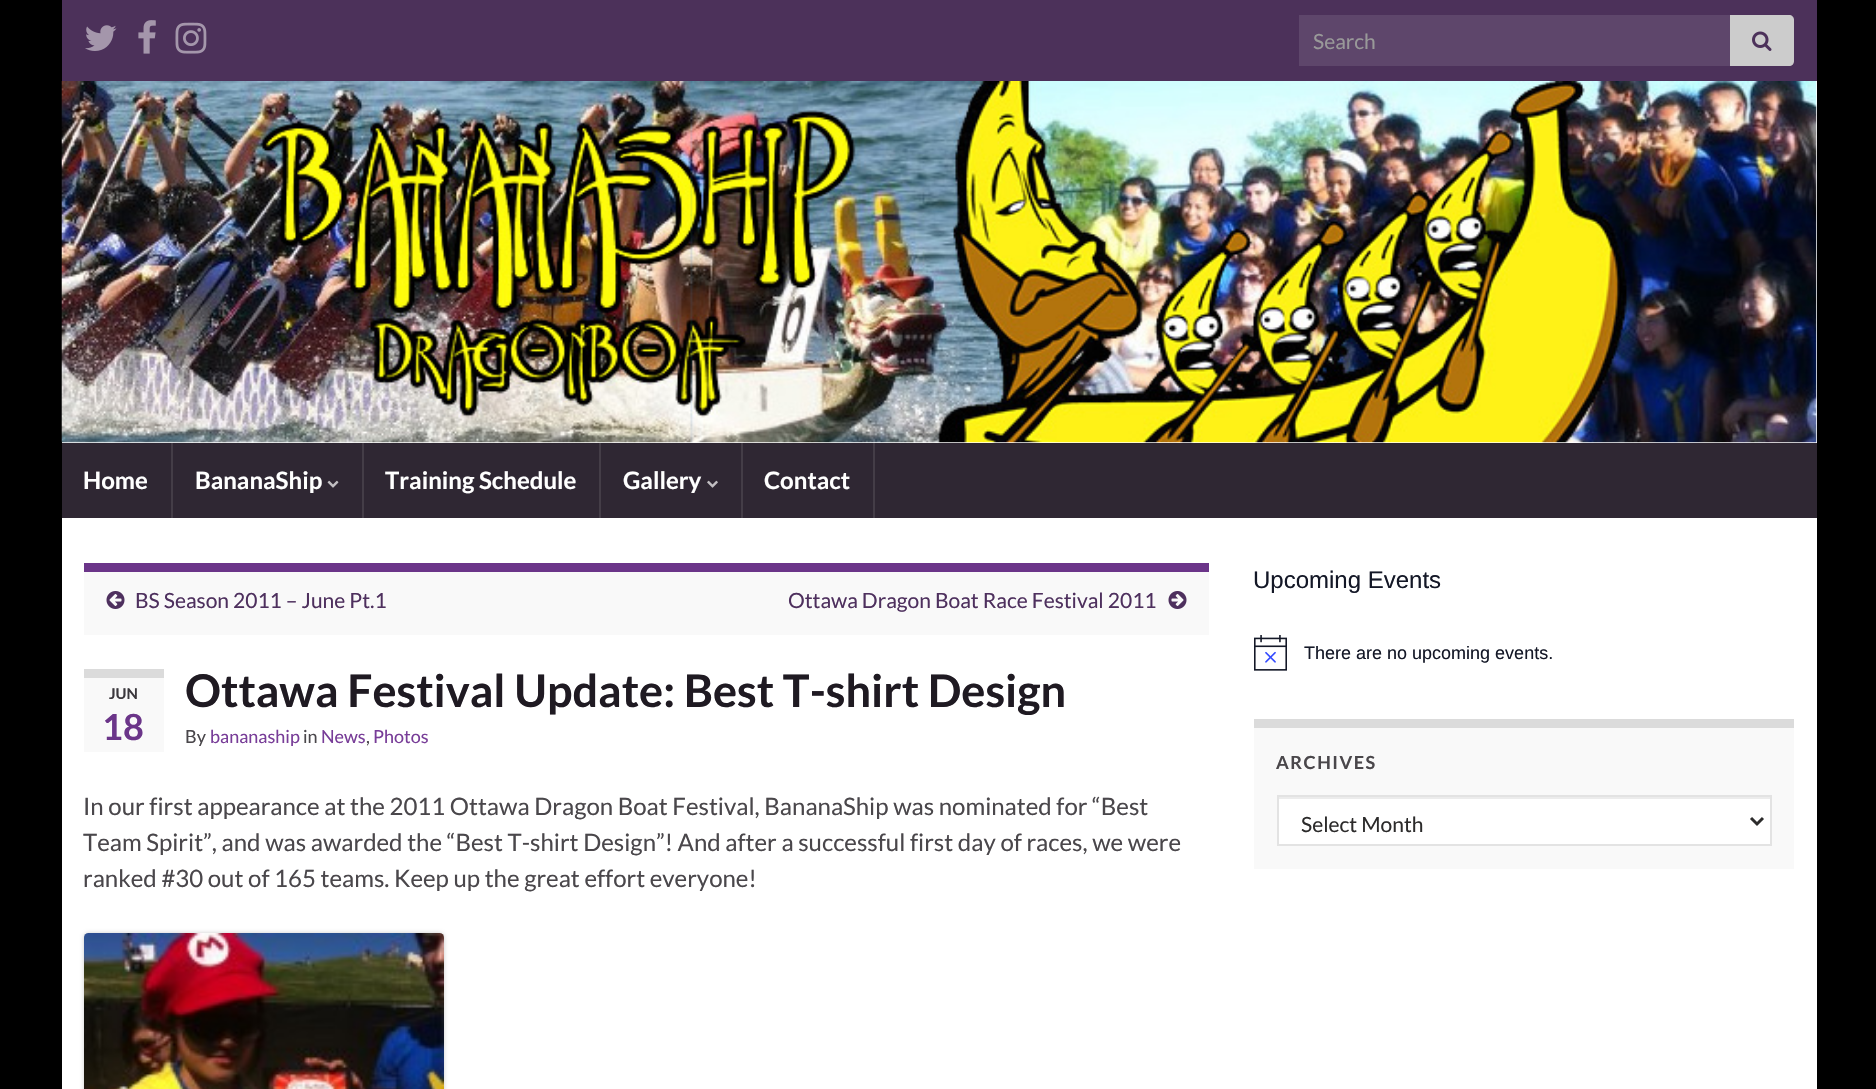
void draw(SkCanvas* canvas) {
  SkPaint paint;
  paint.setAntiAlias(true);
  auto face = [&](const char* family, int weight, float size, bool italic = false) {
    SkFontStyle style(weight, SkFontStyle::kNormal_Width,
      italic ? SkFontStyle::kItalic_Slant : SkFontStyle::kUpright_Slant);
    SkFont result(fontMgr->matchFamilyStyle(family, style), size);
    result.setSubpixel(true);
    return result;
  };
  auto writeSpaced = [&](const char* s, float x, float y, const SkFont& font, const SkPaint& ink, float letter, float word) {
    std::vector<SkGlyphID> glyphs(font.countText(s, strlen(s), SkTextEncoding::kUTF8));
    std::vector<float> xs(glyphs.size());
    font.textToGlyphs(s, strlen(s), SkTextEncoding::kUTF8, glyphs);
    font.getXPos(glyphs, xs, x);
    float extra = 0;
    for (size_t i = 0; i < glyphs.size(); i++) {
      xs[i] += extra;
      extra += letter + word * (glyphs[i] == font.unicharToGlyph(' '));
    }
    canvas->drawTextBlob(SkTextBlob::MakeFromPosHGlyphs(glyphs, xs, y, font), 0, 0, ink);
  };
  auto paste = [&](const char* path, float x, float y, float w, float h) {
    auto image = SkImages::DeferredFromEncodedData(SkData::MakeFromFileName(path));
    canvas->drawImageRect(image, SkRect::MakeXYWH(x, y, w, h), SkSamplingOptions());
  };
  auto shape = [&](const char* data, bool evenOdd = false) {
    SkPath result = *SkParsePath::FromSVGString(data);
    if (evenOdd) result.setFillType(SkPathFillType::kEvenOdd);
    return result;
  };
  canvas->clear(0xff000000);
  paint.setColor(0xff4c315a);
  canvas->drawRect(SkRect::MakeXYWH(62, 0, 1755, 81), paint);
  paste("img/1.png", 85, 25, 32, 26);
  paste("img/2.png", 138, 20, 18, 34);
  paste("img/3.png", 175, 22, 32, 32);
  paint.setColor(0xff5e466b);
  canvas->drawRect(SkRect::MakeXYWH(1299, 15, 431, 51), paint);
  paint.setColor(0xffcccccc);
  canvas->drawPath(shape("M1730 15H1789C1792 15 1794 17 1794 20V61C1794 64 1792 66 1789 66H1730Z"), paint);
  paste("img/4.png", 1752, 31, 20, 20);
  paint.setColor(0xffffffff);
  canvas->drawRect(SkRect::MakeXYWH(62, 81, 1755, 362), paint);
  paste("img/5.png", 61, 81, 1756, 362);
  {
    const struct { float x, y, w, h; SkColor color; } items[] = {
      {62, 443, 1755, 75, 0xff2f2733},
      {171, 443, 2, 75, 0xff443d47},
      {362, 443, 2, 75, 0xff443d47},
    };
    for (auto [x, y, w, h, color] : items) {
      paint.setColor(color);
      canvas->drawRect(SkRect::MakeXYWH(x, y, w, h), paint);
    }
  }
  paste("img/6.png", 327, 480, 12, 8);
  canvas->drawRect(SkRect::MakeXYWH(599, 443, 2, 75), paint);
  canvas->drawRect(SkRect::MakeXYWH(741, 443, 2, 75), paint);
  paste("img/7.png", 707, 480, 11, 8);
  {
    const struct { float x, y, w, h; SkColor color; } items[] = {
      {873, 443, 2, 75, 0xff443d47},
      {62, 518, 1755, 571, 0xffffffff},
      {84, 572, 1125, 63, 0xfff9f9f9},
      {84, 563, 1125, 9, 0xff6b3589},
    };
    for (auto [x, y, w, h, color] : items) {
      paint.setColor(color);
      canvas->drawRect(SkRect::MakeXYWH(x, y, w, h), paint);
    }
  }
  paste("img/8.png", 106, 591, 19, 18);
  paste("img/9.png", 1168, 591, 19, 18);
  paint.setColor(0xfff9f9f9);
  canvas->drawRect(SkRect::MakeXYWH(84, 678, 80, 74), paint);
  paint.setColor(0xffdbdbdb);
  canvas->drawRect(SkRect::MakeXYWH(84, 669, 80, 9), paint);
  paint.setColor(0xffcccccc);
  paint.setMaskFilter(SkMaskFilter::MakeBlur(kNormal_SkBlurStyle, 2));
  canvas->drawRoundRect(SkRect::MakeXYWH(84, 933, 360, 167), 5, 5, paint);
  paint.setMaskFilter(nullptr);
  paste("img/10.png", 84, 933, 360, 156);
  paste("img/11.png", 1254, 635, 33, 36);
  {
    const struct { float x, y, w, h; SkColor color; } items[] = {
      {1254, 728, 540, 141, 0xfff9f9f9},
      {1254, 719, 540, 9, 0xffdbdbdb},
      {1279, 799, 491, 45, 0xffffffff},
      {1278, 797, 492, 2, 0xffececec},
    };
    for (auto [x, y, w, h, color] : items) {
      paint.setColor(color);
      canvas->drawRect(SkRect::MakeXYWH(x, y, w, h), paint);
    }
  }
  paint.setStroke(true);
  paint.setStrokeWidth(2);
  paint.setColor(0xffe3e3e3);
  canvas->drawRect(SkRect::MakeXYWH(1278, 796, 493, 49), paint);
  paint.setStrokeWidth(3);
  paint.setColor(0xff2c2b2b);
  canvas->drawPath(shape("M1751 818L1757 824L1763 818"), paint);
  auto f0 = face("Lato", 400, 21);
  paint.setStroke(false);
  paint.setColor(0xff999999);
  canvas->drawString("Search", 1313, 49, f0, paint);
  auto f1 = face("Lato", 700, 24);
  paint.setColor(0xffffffff);
  {
    const struct { const char* s; float x, y; } items[] = {
      {"Home", 83, 489},
      {"BananaShip", 195, 489},
      {"Training Schedule", 385, 489},
      {"Gallery", 623, 489},
      {"Contact", 764, 489},
    };
    for (auto [s, x, y] : items) {
      canvas->drawString(s, x, y, f1, paint);
    }
  }
  paint.setColor(0xff4e305e);
  canvas->drawString("BS Season 2011 – June Pt.1", 135, 608, f0, paint);
  canvas->drawString("Ottawa Dragon Boat Race Festival 2011", 788, 608, f0, paint);
  auto f2 = face("Lato", 700, 15);
  paint.setColor(0xff3b383d);
  canvas->drawString("JUN", 109, 699, f2, paint);
  auto f3 = face("Lato", 700, 36);
  paint.setColor(0xff6b3589);
  canvas->drawString("18", 102, 740, f3, paint);
  auto f4 = face("Lato", 700, 45);
  paint.setColor(0xff1f1a22);
  canvas->drawString("Ottawa Festival Update: Best T-shirt Design", 185, 707, f4, paint);
  auto f5 = face("Lato", 400, 18);
  paint.setColor(0xff4a474b);
  canvas->drawString("By", 185, 743, f5, paint);
  paint.setColor(0xff783d98);
  canvas->drawString("bananaship", 210, 743, f5, paint);
  paint.setColor(0xff4a474b);
  canvas->drawString("in", 303, 743, f5, paint);
  paint.setColor(0xff783d98);
  canvas->drawString("News", 321, 743, f5, paint);
  paint.setColor(0xff4a474b);
  canvas->drawString(",", 366, 743, f5, paint);
  paint.setColor(0xff783d98);
  canvas->drawString("Photos", 373, 743, f5, paint);
  auto f6 = face("Lato", 400, 24);
  paint.setColor(0xff4a474b);
  {
    const struct { const char* s; float x, y; } items[] = {
      {"In our first appearance at the 2011 Ottawa Dragon Boat Festival, BananaShip was nominated for “Best", 83, 815},
      {"Team Spirit”, and was awarded the “Best T-shirt Design”! And after a successful first day of races, we were", 83, 851},
      {"ranked #30 out of 165 teams. Keep up the great effort everyone!", 83, 887},
    };
    for (auto [s, x, y] : items) {
      canvas->drawString(s, x, y, f6, paint);
    }
  }
  auto f7 = face("Liberation Sans", 400, 24);
  paint.setColor(0xff141827);
  canvas->drawString("Upcoming Events", 1253, 588, f7, paint);
  auto f8 = face("Liberation Sans", 400, 18);
  canvas->drawString("There are no upcoming events.", 1304, 659, f8, paint);
  auto f9 = face("Lato", 700, 18);
  paint.setColor(0xff4a474b);
  writeSpaced("ARCHIVES", 1276, 769, f9, paint, 1.5f, 0);
  paint.setColor(0xff2c2b2b);
  canvas->drawString("Select Month", 1301, 832, f0, paint);
}
